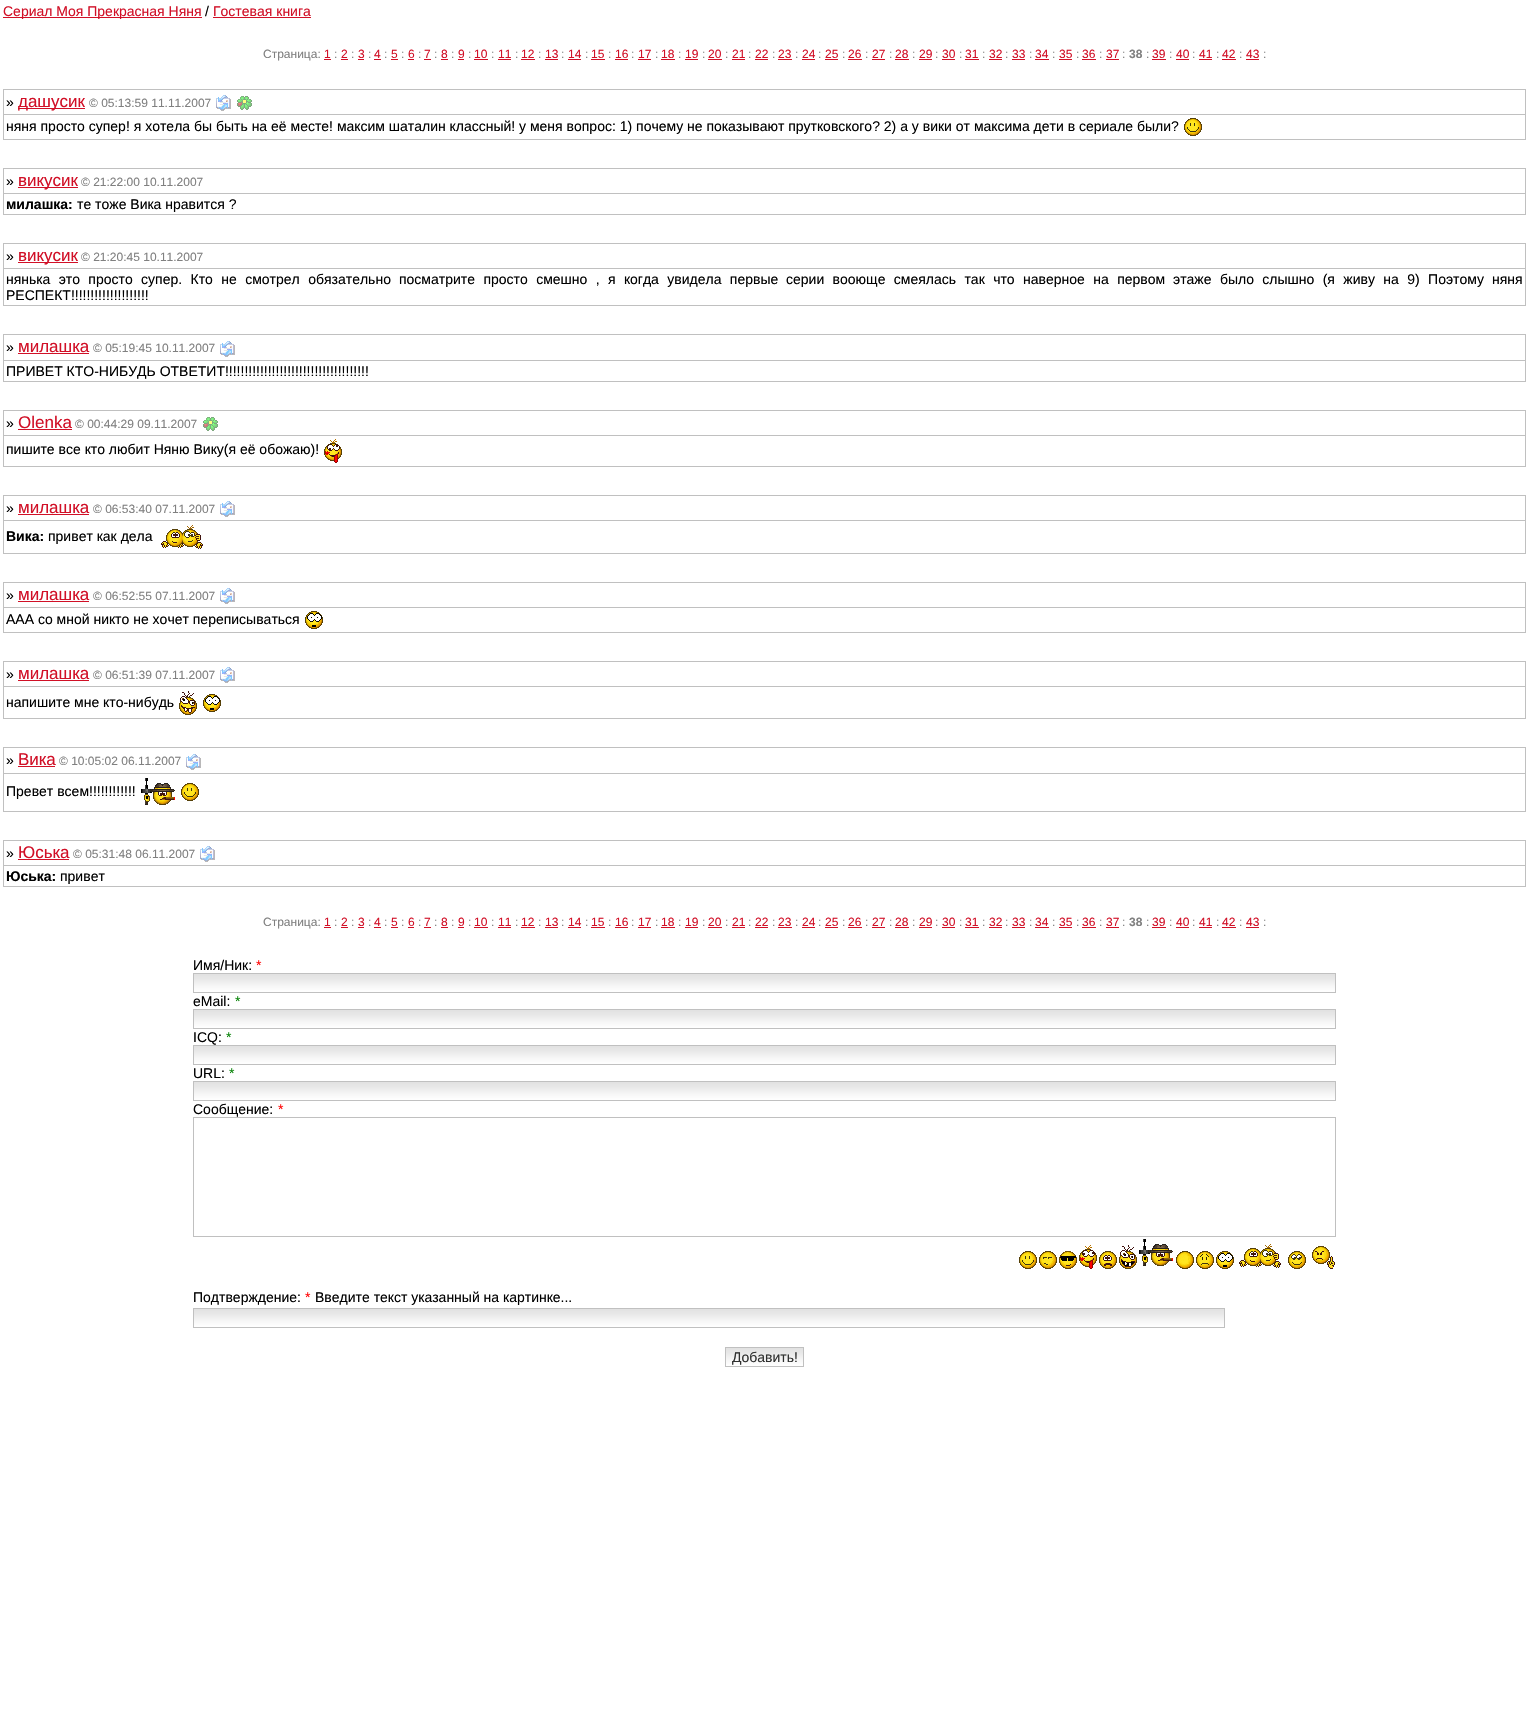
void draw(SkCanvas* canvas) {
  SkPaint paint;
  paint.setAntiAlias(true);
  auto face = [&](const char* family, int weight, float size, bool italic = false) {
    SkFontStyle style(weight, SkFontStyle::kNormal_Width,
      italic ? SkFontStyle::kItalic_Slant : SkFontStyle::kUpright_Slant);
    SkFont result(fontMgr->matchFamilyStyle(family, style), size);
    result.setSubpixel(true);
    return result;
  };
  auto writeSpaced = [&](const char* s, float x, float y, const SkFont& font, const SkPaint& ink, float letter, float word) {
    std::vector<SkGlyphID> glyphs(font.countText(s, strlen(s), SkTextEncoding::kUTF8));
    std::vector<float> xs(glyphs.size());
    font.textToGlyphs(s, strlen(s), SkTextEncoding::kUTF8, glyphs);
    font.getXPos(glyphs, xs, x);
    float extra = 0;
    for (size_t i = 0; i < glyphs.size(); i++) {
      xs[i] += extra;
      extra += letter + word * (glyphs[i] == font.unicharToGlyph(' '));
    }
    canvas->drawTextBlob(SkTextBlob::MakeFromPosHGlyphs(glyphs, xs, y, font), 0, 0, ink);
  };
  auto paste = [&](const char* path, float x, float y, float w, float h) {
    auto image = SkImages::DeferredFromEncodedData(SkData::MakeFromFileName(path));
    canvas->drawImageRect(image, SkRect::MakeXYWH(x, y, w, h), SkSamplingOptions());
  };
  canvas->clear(0xffffffff);
  {
    const struct { float x, y, w, h; SkColor color; } items[] = {
      {3, 17, 199, 1, 0xffd11027},
      {213, 17, 98, 1, 0xffd11027},
      {324, 59, 7, 1, 0xffd11027},
      {341, 59, 7, 1, 0xffd11027},
      {358, 59, 6, 1, 0xffd11027},
      {374, 59, 7, 1, 0xffd11027},
      {391, 59, 7, 1, 0xffd11027},
      {408, 59, 6, 1, 0xffd11027},
      {424, 59, 7, 1, 0xffd11027},
      {441, 59, 7, 1, 0xffd11027},
      {458, 59, 6, 1, 0xffd11027},
      {474, 59, 14, 1, 0xffd11027},
      {498, 59, 13, 1, 0xffd11027},
      {521, 59, 14, 1, 0xffd11027},
      {545, 59, 13, 1, 0xffd11027},
      {568, 59, 13, 1, 0xffd11027},
      {591, 59, 14, 1, 0xffd11027},
      {615, 59, 13, 1, 0xffd11027},
      {638, 59, 13, 1, 0xffd11027},
      {661, 59, 14, 1, 0xffd11027},
      {685, 59, 13, 1, 0xffd11027},
      {708, 59, 14, 1, 0xffd11027},
      {732, 59, 13, 1, 0xffd11027},
      {755, 59, 13, 1, 0xffd11027},
      {778, 59, 14, 1, 0xffd11027},
      {802, 59, 13, 1, 0xffd11027},
      {825, 59, 13, 1, 0xffd11027},
      {848, 59, 14, 1, 0xffd11027},
      {872, 59, 13, 1, 0xffd11027},
      {895, 59, 14, 1, 0xffd11027},
      {919, 59, 13, 1, 0xffd11027},
      {942, 59, 13, 1, 0xffd11027},
      {965, 59, 14, 1, 0xffd11027},
      {989, 59, 13, 1, 0xffd11027},
      {1012, 59, 13, 1, 0xffd11027},
      {1035, 59, 14, 1, 0xffd11027},
      {1059, 59, 13, 1, 0xffd11027},
      {1082, 59, 14, 1, 0xffd11027},
      {1106, 59, 13, 1, 0xffd11027},
      {1152, 59, 14, 1, 0xffd11027},
      {1176, 59, 13, 1, 0xffd11027},
      {1199, 59, 13, 1, 0xffd11027},
      {1222, 59, 14, 1, 0xffd11027},
      {1246, 59, 13, 1, 0xffd11027},
      {3, 89, 1523, 51, 0xffc0c0c0},
      {4, 90, 1521, 24, 0xffffffff},
      {18, 108, 67, 1, 0xffd11027},
    };
    for (auto [x, y, w, h, color] : items) {
      paint.setColor(color);
      canvas->drawRect(SkRect::MakeXYWH(x, y, w, h), paint);
    }
  }
  paste("img/1.png", 216, 95, 15, 16);
  paste("img/2.png", 237, 96, 15, 14);
  paint.setColor(0xffffffff);
  canvas->drawRect(SkRect::MakeXYWH(4, 115, 1521, 24), paint);
  paste("img/3.png", 1184, 118, 18, 18);
  {
    const struct { float x, y, w, h; SkColor color; } items[] = {
      {3, 168, 1523, 47, 0xffc0c0c0},
      {4, 169, 1521, 24, 0xffffffff},
      {18, 187, 60, 1, 0xffd11027},
      {4, 194, 1521, 20, 0xffffffff},
      {3, 243, 1523, 63, 0xffc0c0c0},
      {4, 244, 1521, 24, 0xffffffff},
      {18, 262, 60, 1, 0xffd11027},
      {4, 269, 1521, 36, 0xffffffff},
      {3, 334, 1523, 48, 0xffc0c0c0},
      {4, 335, 1521, 25, 0xffffffff},
      {18, 353, 71, 1, 0xffd11027},
    };
    for (auto [x, y, w, h, color] : items) {
      paint.setColor(color);
      canvas->drawRect(SkRect::MakeXYWH(x, y, w, h), paint);
    }
  }
  paste("img/1.png", 220, 341, 15, 16);
  {
    const struct { float x, y, w, h; SkColor color; } items[] = {
      {4, 361, 1521, 20, 0xffffffff},
      {3, 410, 1523, 57, 0xffc0c0c0},
      {4, 411, 1521, 24, 0xffffffff},
      {18, 429, 54, 1, 0xffd11027},
    };
    for (auto [x, y, w, h, color] : items) {
      paint.setColor(color);
      canvas->drawRect(SkRect::MakeXYWH(x, y, w, h), paint);
    }
  }
  paste("img/2.png", 203, 417, 15, 14);
  paint.setColor(0xffffffff);
  canvas->drawRect(SkRect::MakeXYWH(4, 436, 1521, 30), paint);
  paste("img/4.png", 324, 439, 18, 24);
  {
    const struct { float x, y, w, h; SkColor color; } items[] = {
      {3, 495, 1523, 59, 0xffc0c0c0},
      {4, 496, 1521, 24, 0xffffffff},
      {18, 514, 71, 1, 0xffd11027},
    };
    for (auto [x, y, w, h, color] : items) {
      paint.setColor(color);
      canvas->drawRect(SkRect::MakeXYWH(x, y, w, h), paint);
    }
  }
  paste("img/1.png", 220, 501, 15, 16);
  paint.setColor(0xffffffff);
  canvas->drawRect(SkRect::MakeXYWH(4, 521, 1521, 32), paint);
  paste("img/5.png", 161, 525, 42, 24);
  {
    const struct { float x, y, w, h; SkColor color; } items[] = {
      {3, 582, 1523, 51, 0xffc0c0c0},
      {4, 583, 1521, 24, 0xffffffff},
      {18, 601, 71, 1, 0xffd11027},
    };
    for (auto [x, y, w, h, color] : items) {
      paint.setColor(color);
      canvas->drawRect(SkRect::MakeXYWH(x, y, w, h), paint);
    }
  }
  paste("img/1.png", 220, 588, 15, 16);
  paint.setColor(0xffffffff);
  canvas->drawRect(SkRect::MakeXYWH(4, 608, 1521, 24), paint);
  paste("img/6.png", 305, 611, 18, 18);
  {
    const struct { float x, y, w, h; SkColor color; } items[] = {
      {3, 661, 1523, 58, 0xffc0c0c0},
      {4, 662, 1521, 24, 0xffffffff},
      {18, 680, 71, 1, 0xffd11027},
    };
    for (auto [x, y, w, h, color] : items) {
      paint.setColor(color);
      canvas->drawRect(SkRect::MakeXYWH(x, y, w, h), paint);
    }
  }
  paste("img/1.png", 220, 667, 15, 16);
  paint.setColor(0xffffffff);
  canvas->drawRect(SkRect::MakeXYWH(4, 687, 1521, 31), paint);
  paste("img/7.png", 179, 691, 18, 24);
  paste("img/6.png", 203, 694, 18, 18);
  {
    const struct { float x, y, w, h; SkColor color; } items[] = {
      {3, 747, 1523, 65, 0xffc0c0c0},
      {4, 748, 1521, 25, 0xffffffff},
      {18, 766, 37, 1, 0xffd11027},
    };
    for (auto [x, y, w, h, color] : items) {
      paint.setColor(color);
      canvas->drawRect(SkRect::MakeXYWH(x, y, w, h), paint);
    }
  }
  paste("img/1.png", 186, 754, 15, 16);
  paint.setColor(0xffffffff);
  canvas->drawRect(SkRect::MakeXYWH(4, 774, 1521, 37), paint);
  paste("img/8.png", 141, 778, 34, 27);
  paste("img/3.png", 181, 783, 18, 18);
  {
    const struct { float x, y, w, h; SkColor color; } items[] = {
      {3, 840, 1523, 47, 0xffc0c0c0},
      {4, 841, 1521, 24, 0xffffffff},
      {18, 859, 51, 1, 0xffd11027},
    };
    for (auto [x, y, w, h, color] : items) {
      paint.setColor(color);
      canvas->drawRect(SkRect::MakeXYWH(x, y, w, h), paint);
    }
  }
  paste("img/1.png", 200, 846, 15, 16);
  {
    const struct { float x, y, w, h; SkColor color; } items[] = {
      {4, 866, 1521, 20, 0xffffffff},
      {324, 927, 7, 1, 0xffd11027},
      {341, 927, 7, 1, 0xffd11027},
      {358, 927, 6, 1, 0xffd11027},
      {374, 927, 7, 1, 0xffd11027},
      {391, 927, 7, 1, 0xffd11027},
      {408, 927, 6, 1, 0xffd11027},
      {424, 927, 7, 1, 0xffd11027},
      {441, 927, 7, 1, 0xffd11027},
      {458, 927, 6, 1, 0xffd11027},
      {474, 927, 14, 1, 0xffd11027},
      {498, 927, 13, 1, 0xffd11027},
      {521, 927, 14, 1, 0xffd11027},
      {545, 927, 13, 1, 0xffd11027},
      {568, 927, 13, 1, 0xffd11027},
      {591, 927, 14, 1, 0xffd11027},
      {615, 927, 13, 1, 0xffd11027},
      {638, 927, 13, 1, 0xffd11027},
      {661, 927, 14, 1, 0xffd11027},
      {685, 927, 13, 1, 0xffd11027},
      {708, 927, 14, 1, 0xffd11027},
      {732, 927, 13, 1, 0xffd11027},
      {755, 927, 13, 1, 0xffd11027},
      {778, 927, 14, 1, 0xffd11027},
      {802, 927, 13, 1, 0xffd11027},
      {825, 927, 13, 1, 0xffd11027},
      {848, 927, 14, 1, 0xffd11027},
      {872, 927, 13, 1, 0xffd11027},
      {895, 927, 14, 1, 0xffd11027},
      {919, 927, 13, 1, 0xffd11027},
      {942, 927, 13, 1, 0xffd11027},
      {965, 927, 14, 1, 0xffd11027},
      {989, 927, 13, 1, 0xffd11027},
      {1012, 927, 13, 1, 0xffd11027},
      {1035, 927, 14, 1, 0xffd11027},
      {1059, 927, 13, 1, 0xffd11027},
      {1082, 927, 14, 1, 0xffd11027},
      {1106, 927, 13, 1, 0xffd11027},
      {1152, 927, 14, 1, 0xffd11027},
      {1176, 927, 13, 1, 0xffd11027},
      {1199, 927, 13, 1, 0xffd11027},
      {1222, 927, 14, 1, 0xffd11027},
      {1246, 927, 13, 1, 0xffd11027},
    };
    for (auto [x, y, w, h, color] : items) {
      paint.setColor(color);
      canvas->drawRect(SkRect::MakeXYWH(x, y, w, h), paint);
    }
  }
  paste("img/9.png", 194, 974, 1141, 18);
  paint.setStroke(true);
  paint.setStrokeWidth(1);
  paint.setColor(0xffc0c0c0);
  canvas->drawRect(SkRect::MakeXYWH(193.5f, 973.5f, 1142, 19), paint);
  paste("img/9.png", 194, 1010, 1141, 18);
  canvas->drawRect(SkRect::MakeXYWH(193.5f, 1009.5f, 1142, 19), paint);
  paste("img/9.png", 194, 1046, 1141, 18);
  canvas->drawRect(SkRect::MakeXYWH(193.5f, 1045.5f, 1142, 19), paint);
  paste("img/9.png", 194, 1082, 1141, 18);
  canvas->drawRect(SkRect::MakeXYWH(193.5f, 1081.5f, 1142, 19), paint);
  canvas->drawRect(SkRect::MakeXYWH(193.5f, 1117.5f, 1142, 119), paint);
  paste("img/3.png", 1019, 1251, 18, 18);
  paste("img/10.png", 1039, 1251, 18, 18);
  paste("img/11.png", 1059, 1251, 18, 18);
  paste("img/12.png", 1079, 1245, 18, 24);
  paste("img/13.png", 1099, 1251, 18, 18);
  paste("img/14.png", 1119, 1245, 18, 24);
  paste("img/8.png", 1139, 1239, 34, 27);
  paste("img/15.png", 1176, 1251, 18, 18);
  paste("img/16.png", 1196, 1251, 18, 18);
  paste("img/6.png", 1216, 1251, 18, 18);
  paste("img/5.png", 1239, 1244, 42, 24);
  paste("img/17.png", 1288, 1251, 18, 18);
  paste("img/18.png", 1312, 1246, 23, 23);
  paste("img/19.png", 194, 1309, 1030, 18);
  canvas->drawRect(SkRect::MakeXYWH(193.5f, 1308.5f, 1031, 19), paint);
  paste("img/20.png", 726, 1348, 77, 18);
  canvas->drawRect(SkRect::MakeXYWH(725.5f, 1347.5f, 78, 19), paint);
  auto f0 = face("Liberation Sans", 400, 14);
  paint.setStroke(false);
  paint.setColor(0xffd11027);
  canvas->drawString("Сериал Моя Прекрасная Няня", 3, 16, f0, paint);
  paint.setColor(0xff000000);
  canvas->drawString("/", 205, 16, f0, paint);
  paint.setColor(0xffd11027);
  canvas->drawString("Гостевая книга", 213, 16, f0, paint);
  auto f1 = face("Liberation Sans", 400, 12);
  paint.setColor(0xff808080);
  canvas->drawString("Страница:", 263, 58, f1, paint);
  paint.setColor(0xffd11027);
  canvas->drawString("1", 324, 58, f1, paint);
  paint.setColor(0xff808080);
  canvas->drawString(":", 334, 58, f1, paint);
  paint.setColor(0xffd11027);
  canvas->drawString("2", 341, 58, f1, paint);
  paint.setColor(0xff808080);
  canvas->drawString(":", 351, 58, f1, paint);
  paint.setColor(0xffd11027);
  canvas->drawString("3", 358, 58, f1, paint);
  paint.setColor(0xff808080);
  canvas->drawString(":", 368, 58, f1, paint);
  paint.setColor(0xffd11027);
  canvas->drawString("4", 374, 58, f1, paint);
  paint.setColor(0xff808080);
  canvas->drawString(":", 384, 58, f1, paint);
  paint.setColor(0xffd11027);
  canvas->drawString("5", 391, 58, f1, paint);
  paint.setColor(0xff808080);
  canvas->drawString(":", 401, 58, f1, paint);
  paint.setColor(0xffd11027);
  canvas->drawString("6", 408, 58, f1, paint);
  paint.setColor(0xff808080);
  canvas->drawString(":", 418, 58, f1, paint);
  paint.setColor(0xffd11027);
  canvas->drawString("7", 424, 58, f1, paint);
  paint.setColor(0xff808080);
  canvas->drawString(":", 434, 58, f1, paint);
  paint.setColor(0xffd11027);
  canvas->drawString("8", 441, 58, f1, paint);
  paint.setColor(0xff808080);
  canvas->drawString(":", 451, 58, f1, paint);
  paint.setColor(0xffd11027);
  canvas->drawString("9", 458, 58, f1, paint);
  paint.setColor(0xff808080);
  canvas->drawString(":", 468, 58, f1, paint);
  paint.setColor(0xffd11027);
  canvas->drawString("10", 474, 58, f1, paint);
  paint.setColor(0xff808080);
  canvas->drawString(":", 491, 58, f1, paint);
  paint.setColor(0xffd11027);
  canvas->drawString("11", 498, 58, f1, paint);
  paint.setColor(0xff808080);
  canvas->drawString(":", 515, 58, f1, paint);
  paint.setColor(0xffd11027);
  canvas->drawString("12", 521, 58, f1, paint);
  paint.setColor(0xff808080);
  canvas->drawString(":", 538, 58, f1, paint);
  paint.setColor(0xffd11027);
  canvas->drawString("13", 545, 58, f1, paint);
  paint.setColor(0xff808080);
  canvas->drawString(":", 561, 58, f1, paint);
  paint.setColor(0xffd11027);
  canvas->drawString("14", 568, 58, f1, paint);
  paint.setColor(0xff808080);
  canvas->drawString(":", 585, 58, f1, paint);
  paint.setColor(0xffd11027);
  canvas->drawString("15", 591, 58, f1, paint);
  paint.setColor(0xff808080);
  canvas->drawString(":", 608, 58, f1, paint);
  paint.setColor(0xffd11027);
  canvas->drawString("16", 615, 58, f1, paint);
  paint.setColor(0xff808080);
  canvas->drawString(":", 631, 58, f1, paint);
  paint.setColor(0xffd11027);
  canvas->drawString("17", 638, 58, f1, paint);
  paint.setColor(0xff808080);
  canvas->drawString(":", 655, 58, f1, paint);
  paint.setColor(0xffd11027);
  canvas->drawString("18", 661, 58, f1, paint);
  paint.setColor(0xff808080);
  canvas->drawString(":", 678, 58, f1, paint);
  paint.setColor(0xffd11027);
  canvas->drawString("19", 685, 58, f1, paint);
  paint.setColor(0xff808080);
  canvas->drawString(":", 702, 58, f1, paint);
  paint.setColor(0xffd11027);
  canvas->drawString("20", 708, 58, f1, paint);
  paint.setColor(0xff808080);
  canvas->drawString(":", 725, 58, f1, paint);
  paint.setColor(0xffd11027);
  canvas->drawString("21", 732, 58, f1, paint);
  paint.setColor(0xff808080);
  canvas->drawString(":", 748, 58, f1, paint);
  paint.setColor(0xffd11027);
  canvas->drawString("22", 755, 58, f1, paint);
  paint.setColor(0xff808080);
  canvas->drawString(":", 772, 58, f1, paint);
  paint.setColor(0xffd11027);
  canvas->drawString("23", 778, 58, f1, paint);
  paint.setColor(0xff808080);
  canvas->drawString(":", 795, 58, f1, paint);
  paint.setColor(0xffd11027);
  canvas->drawString("24", 802, 58, f1, paint);
  paint.setColor(0xff808080);
  canvas->drawString(":", 818, 58, f1, paint);
  paint.setColor(0xffd11027);
  canvas->drawString("25", 825, 58, f1, paint);
  paint.setColor(0xff808080);
  canvas->drawString(":", 842, 58, f1, paint);
  paint.setColor(0xffd11027);
  canvas->drawString("26", 848, 58, f1, paint);
  paint.setColor(0xff808080);
  canvas->drawString(":", 865, 58, f1, paint);
  paint.setColor(0xffd11027);
  canvas->drawString("27", 872, 58, f1, paint);
  paint.setColor(0xff808080);
  canvas->drawString(":", 889, 58, f1, paint);
  paint.setColor(0xffd11027);
  canvas->drawString("28", 895, 58, f1, paint);
  paint.setColor(0xff808080);
  canvas->drawString(":", 912, 58, f1, paint);
  paint.setColor(0xffd11027);
  canvas->drawString("29", 919, 58, f1, paint);
  paint.setColor(0xff808080);
  canvas->drawString(":", 935, 58, f1, paint);
  paint.setColor(0xffd11027);
  canvas->drawString("30", 942, 58, f1, paint);
  paint.setColor(0xff808080);
  canvas->drawString(":", 959, 58, f1, paint);
  paint.setColor(0xffd11027);
  canvas->drawString("31", 965, 58, f1, paint);
  paint.setColor(0xff808080);
  canvas->drawString(":", 982, 58, f1, paint);
  paint.setColor(0xffd11027);
  canvas->drawString("32", 989, 58, f1, paint);
  paint.setColor(0xff808080);
  canvas->drawString(":", 1005, 58, f1, paint);
  paint.setColor(0xffd11027);
  canvas->drawString("33", 1012, 58, f1, paint);
  paint.setColor(0xff808080);
  canvas->drawString(":", 1029, 58, f1, paint);
  paint.setColor(0xffd11027);
  canvas->drawString("34", 1035, 58, f1, paint);
  paint.setColor(0xff808080);
  canvas->drawString(":", 1052, 58, f1, paint);
  paint.setColor(0xffd11027);
  canvas->drawString("35", 1059, 58, f1, paint);
  paint.setColor(0xff808080);
  canvas->drawString(":", 1076, 58, f1, paint);
  paint.setColor(0xffd11027);
  canvas->drawString("36", 1082, 58, f1, paint);
  paint.setColor(0xff808080);
  canvas->drawString(":", 1099, 58, f1, paint);
  paint.setColor(0xffd11027);
  canvas->drawString("37", 1106, 58, f1, paint);
  paint.setColor(0xff808080);
  canvas->drawString(":", 1122, 58, f1, paint);
  auto f2 = face("Liberation Sans", 700, 12);
  canvas->drawString("38", 1129, 58, f2, paint);
  canvas->drawString(":", 1146, 58, f1, paint);
  paint.setColor(0xffd11027);
  canvas->drawString("39", 1152, 58, f1, paint);
  paint.setColor(0xff808080);
  canvas->drawString(":", 1169, 58, f1, paint);
  paint.setColor(0xffd11027);
  canvas->drawString("40", 1176, 58, f1, paint);
  paint.setColor(0xff808080);
  canvas->drawString(":", 1192, 58, f1, paint);
  paint.setColor(0xffd11027);
  canvas->drawString("41", 1199, 58, f1, paint);
  paint.setColor(0xff808080);
  canvas->drawString(":", 1216, 58, f1, paint);
  paint.setColor(0xffd11027);
  canvas->drawString("42", 1222, 58, f1, paint);
  paint.setColor(0xff808080);
  canvas->drawString(":", 1239, 58, f1, paint);
  paint.setColor(0xffd11027);
  canvas->drawString("43", 1246, 58, f1, paint);
  paint.setColor(0xff808080);
  canvas->drawString(":", 1263, 58, f1, paint);
  paint.setColor(0xff000000);
  canvas->drawString("»", 6, 107, f0, paint);
  auto f3 = face("Liberation Sans", 400, 17);
  paint.setColor(0xffd11027);
  canvas->drawString("дашусик", 18, 107, f3, paint);
  paint.setColor(0xff808080);
  canvas->drawString("© 05:13:59 11.11.2007", 89, 107, f1, paint);
  paint.setColor(0xff000000);
  canvas->drawString("няня просто супер! я хотела бы быть на её месте! максим шаталин классный! у меня вопрос: 1) почему не показывают прутковского? 2) а у вики от максима дети в сериале были?", 6, 131, f0, paint);
  canvas->drawString("»", 6, 186, f0, paint);
  paint.setColor(0xffd11027);
  canvas->drawString("викусик", 18, 186, f3, paint);
  paint.setColor(0xff808080);
  canvas->drawString("© 21:22:00 10.11.2007", 81, 186, f1, paint);
  auto f4 = face("Liberation Sans", 700, 14);
  paint.setColor(0xff000000);
  canvas->drawString("милашка:", 6, 209, f4, paint);
  canvas->drawString("те тоже Вика нравится ?", 77, 209, f0, paint);
  canvas->drawString("»", 6, 261, f0, paint);
  paint.setColor(0xffd11027);
  canvas->drawString("викусик", 18, 261, f3, paint);
  paint.setColor(0xff808080);
  canvas->drawString("© 21:20:45 10.11.2007", 81, 261, f1, paint);
  paint.setColor(0xff000000);
  {
    const struct { const char* s; float x, y; } items[] = {
      {"нянька это просто супер. Кто не смотрел обязательно", 6, 284},
      {"посматрите просто смешно , я когда увидела первые", 399, 284},
      {"серии вооюще смеялась так что наверное на первом", 786, 284},
      {"этаже было слышно (я живу на 9) Поэтому", 1173, 284},
    };
    for (auto [s, x, y] : items) {
      writeSpaced(s, x, y, f0, paint, 0, 4.5f);
    }
  }
  {
    const struct { const char* s; float x, y; } items[] = {
      {"няня", 1492, 284},
      {"РЕСПЕКТ!!!!!!!!!!!!!!!!!!!!", 6, 300},
      {"»", 6, 352},
    };
    for (auto [s, x, y] : items) {
      canvas->drawString(s, x, y, f0, paint);
    }
  }
  paint.setColor(0xffd11027);
  canvas->drawString("милашка", 18, 352, f3, paint);
  paint.setColor(0xff808080);
  canvas->drawString("© 05:19:45 10.11.2007", 93, 352, f1, paint);
  paint.setColor(0xff000000);
  canvas->drawString("ПРИВЕТ КТО-НИБУДЬ ОТВЕТИТ!!!!!!!!!!!!!!!!!!!!!!!!!!!!!!!!!!!!!", 6, 376, f0, paint);
  canvas->drawString("»", 6, 428, f0, paint);
  paint.setColor(0xffd11027);
  canvas->drawString("Olenka", 18, 428, f3, paint);
  paint.setColor(0xff808080);
  canvas->drawString("© 00:44:29 09.11.2007", 75, 428, f1, paint);
  paint.setColor(0xff000000);
  canvas->drawString("пишите все кто любит Няню Вику(я её обожаю)!", 6, 454, f0, paint);
  canvas->drawString("»", 6, 513, f0, paint);
  paint.setColor(0xffd11027);
  canvas->drawString("милашка", 18, 513, f3, paint);
  paint.setColor(0xff808080);
  canvas->drawString("© 06:53:40 07.11.2007", 93, 513, f1, paint);
  paint.setColor(0xff000000);
  canvas->drawString("Вика:", 6, 541, f4, paint);
  canvas->drawString("привет как дела", 48, 541, f0, paint);
  canvas->drawString("»", 6, 600, f0, paint);
  paint.setColor(0xffd11027);
  canvas->drawString("милашка", 18, 600, f3, paint);
  paint.setColor(0xff808080);
  canvas->drawString("© 06:52:55 07.11.2007", 93, 600, f1, paint);
  paint.setColor(0xff000000);
  canvas->drawString("ААА со мной никто не хочет переписываться", 6, 624, f0, paint);
  canvas->drawString("»", 6, 679, f0, paint);
  paint.setColor(0xffd11027);
  canvas->drawString("милашка", 18, 679, f3, paint);
  paint.setColor(0xff808080);
  canvas->drawString("© 06:51:39 07.11.2007", 93, 679, f1, paint);
  paint.setColor(0xff000000);
  canvas->drawString("напишите мне кто-нибудь", 6, 707, f0, paint);
  canvas->drawString("»", 6, 765, f0, paint);
  paint.setColor(0xffd11027);
  canvas->drawString("Вика", 18, 765, f3, paint);
  paint.setColor(0xff808080);
  canvas->drawString("© 10:05:02 06.11.2007", 59, 765, f1, paint);
  paint.setColor(0xff000000);
  canvas->drawString("Превет всем!!!!!!!!!!!!", 6, 796, f0, paint);
  canvas->drawString("»", 6, 858, f0, paint);
  paint.setColor(0xffd11027);
  canvas->drawString("Юська", 18, 858, f3, paint);
  paint.setColor(0xff808080);
  canvas->drawString("© 05:31:48 06.11.2007", 73, 858, f1, paint);
  paint.setColor(0xff000000);
  canvas->drawString("Юська:", 6, 881, f4, paint);
  canvas->drawString("привет", 60, 881, f0, paint);
  paint.setColor(0xff808080);
  canvas->drawString("Страница:", 263, 926, f1, paint);
  paint.setColor(0xffd11027);
  canvas->drawString("1", 324, 926, f1, paint);
  paint.setColor(0xff808080);
  canvas->drawString(":", 334, 926, f1, paint);
  paint.setColor(0xffd11027);
  canvas->drawString("2", 341, 926, f1, paint);
  paint.setColor(0xff808080);
  canvas->drawString(":", 351, 926, f1, paint);
  paint.setColor(0xffd11027);
  canvas->drawString("3", 358, 926, f1, paint);
  paint.setColor(0xff808080);
  canvas->drawString(":", 368, 926, f1, paint);
  paint.setColor(0xffd11027);
  canvas->drawString("4", 374, 926, f1, paint);
  paint.setColor(0xff808080);
  canvas->drawString(":", 384, 926, f1, paint);
  paint.setColor(0xffd11027);
  canvas->drawString("5", 391, 926, f1, paint);
  paint.setColor(0xff808080);
  canvas->drawString(":", 401, 926, f1, paint);
  paint.setColor(0xffd11027);
  canvas->drawString("6", 408, 926, f1, paint);
  paint.setColor(0xff808080);
  canvas->drawString(":", 418, 926, f1, paint);
  paint.setColor(0xffd11027);
  canvas->drawString("7", 424, 926, f1, paint);
  paint.setColor(0xff808080);
  canvas->drawString(":", 434, 926, f1, paint);
  paint.setColor(0xffd11027);
  canvas->drawString("8", 441, 926, f1, paint);
  paint.setColor(0xff808080);
  canvas->drawString(":", 451, 926, f1, paint);
  paint.setColor(0xffd11027);
  canvas->drawString("9", 458, 926, f1, paint);
  paint.setColor(0xff808080);
  canvas->drawString(":", 468, 926, f1, paint);
  paint.setColor(0xffd11027);
  canvas->drawString("10", 474, 926, f1, paint);
  paint.setColor(0xff808080);
  canvas->drawString(":", 491, 926, f1, paint);
  paint.setColor(0xffd11027);
  canvas->drawString("11", 498, 926, f1, paint);
  paint.setColor(0xff808080);
  canvas->drawString(":", 515, 926, f1, paint);
  paint.setColor(0xffd11027);
  canvas->drawString("12", 521, 926, f1, paint);
  paint.setColor(0xff808080);
  canvas->drawString(":", 538, 926, f1, paint);
  paint.setColor(0xffd11027);
  canvas->drawString("13", 545, 926, f1, paint);
  paint.setColor(0xff808080);
  canvas->drawString(":", 561, 926, f1, paint);
  paint.setColor(0xffd11027);
  canvas->drawString("14", 568, 926, f1, paint);
  paint.setColor(0xff808080);
  canvas->drawString(":", 585, 926, f1, paint);
  paint.setColor(0xffd11027);
  canvas->drawString("15", 591, 926, f1, paint);
  paint.setColor(0xff808080);
  canvas->drawString(":", 608, 926, f1, paint);
  paint.setColor(0xffd11027);
  canvas->drawString("16", 615, 926, f1, paint);
  paint.setColor(0xff808080);
  canvas->drawString(":", 631, 926, f1, paint);
  paint.setColor(0xffd11027);
  canvas->drawString("17", 638, 926, f1, paint);
  paint.setColor(0xff808080);
  canvas->drawString(":", 655, 926, f1, paint);
  paint.setColor(0xffd11027);
  canvas->drawString("18", 661, 926, f1, paint);
  paint.setColor(0xff808080);
  canvas->drawString(":", 678, 926, f1, paint);
  paint.setColor(0xffd11027);
  canvas->drawString("19", 685, 926, f1, paint);
  paint.setColor(0xff808080);
  canvas->drawString(":", 702, 926, f1, paint);
  paint.setColor(0xffd11027);
  canvas->drawString("20", 708, 926, f1, paint);
  paint.setColor(0xff808080);
  canvas->drawString(":", 725, 926, f1, paint);
  paint.setColor(0xffd11027);
  canvas->drawString("21", 732, 926, f1, paint);
  paint.setColor(0xff808080);
  canvas->drawString(":", 748, 926, f1, paint);
  paint.setColor(0xffd11027);
  canvas->drawString("22", 755, 926, f1, paint);
  paint.setColor(0xff808080);
  canvas->drawString(":", 772, 926, f1, paint);
  paint.setColor(0xffd11027);
  canvas->drawString("23", 778, 926, f1, paint);
  paint.setColor(0xff808080);
  canvas->drawString(":", 795, 926, f1, paint);
  paint.setColor(0xffd11027);
  canvas->drawString("24", 802, 926, f1, paint);
  paint.setColor(0xff808080);
  canvas->drawString(":", 818, 926, f1, paint);
  paint.setColor(0xffd11027);
  canvas->drawString("25", 825, 926, f1, paint);
  paint.setColor(0xff808080);
  canvas->drawString(":", 842, 926, f1, paint);
  paint.setColor(0xffd11027);
  canvas->drawString("26", 848, 926, f1, paint);
  paint.setColor(0xff808080);
  canvas->drawString(":", 865, 926, f1, paint);
  paint.setColor(0xffd11027);
  canvas->drawString("27", 872, 926, f1, paint);
  paint.setColor(0xff808080);
  canvas->drawString(":", 889, 926, f1, paint);
  paint.setColor(0xffd11027);
  canvas->drawString("28", 895, 926, f1, paint);
  paint.setColor(0xff808080);
  canvas->drawString(":", 912, 926, f1, paint);
  paint.setColor(0xffd11027);
  canvas->drawString("29", 919, 926, f1, paint);
  paint.setColor(0xff808080);
  canvas->drawString(":", 935, 926, f1, paint);
  paint.setColor(0xffd11027);
  canvas->drawString("30", 942, 926, f1, paint);
  paint.setColor(0xff808080);
  canvas->drawString(":", 959, 926, f1, paint);
  paint.setColor(0xffd11027);
  canvas->drawString("31", 965, 926, f1, paint);
  paint.setColor(0xff808080);
  canvas->drawString(":", 982, 926, f1, paint);
  paint.setColor(0xffd11027);
  canvas->drawString("32", 989, 926, f1, paint);
  paint.setColor(0xff808080);
  canvas->drawString(":", 1005, 926, f1, paint);
  paint.setColor(0xffd11027);
  canvas->drawString("33", 1012, 926, f1, paint);
  paint.setColor(0xff808080);
  canvas->drawString(":", 1029, 926, f1, paint);
  paint.setColor(0xffd11027);
  canvas->drawString("34", 1035, 926, f1, paint);
  paint.setColor(0xff808080);
  canvas->drawString(":", 1052, 926, f1, paint);
  paint.setColor(0xffd11027);
  canvas->drawString("35", 1059, 926, f1, paint);
  paint.setColor(0xff808080);
  canvas->drawString(":", 1076, 926, f1, paint);
  paint.setColor(0xffd11027);
  canvas->drawString("36", 1082, 926, f1, paint);
  paint.setColor(0xff808080);
  canvas->drawString(":", 1099, 926, f1, paint);
  paint.setColor(0xffd11027);
  canvas->drawString("37", 1106, 926, f1, paint);
  paint.setColor(0xff808080);
  canvas->drawString(":", 1122, 926, f1, paint);
  canvas->drawString("38", 1129, 926, f2, paint);
  canvas->drawString(":", 1146, 926, f1, paint);
  paint.setColor(0xffd11027);
  canvas->drawString("39", 1152, 926, f1, paint);
  paint.setColor(0xff808080);
  canvas->drawString(":", 1169, 926, f1, paint);
  paint.setColor(0xffd11027);
  canvas->drawString("40", 1176, 926, f1, paint);
  paint.setColor(0xff808080);
  canvas->drawString(":", 1192, 926, f1, paint);
  paint.setColor(0xffd11027);
  canvas->drawString("41", 1199, 926, f1, paint);
  paint.setColor(0xff808080);
  canvas->drawString(":", 1216, 926, f1, paint);
  paint.setColor(0xffd11027);
  canvas->drawString("42", 1222, 926, f1, paint);
  paint.setColor(0xff808080);
  canvas->drawString(":", 1239, 926, f1, paint);
  paint.setColor(0xffd11027);
  canvas->drawString("43", 1246, 926, f1, paint);
  paint.setColor(0xff808080);
  canvas->drawString(":", 1263, 926, f1, paint);
  paint.setColor(0xff000000);
  canvas->drawString("Имя/Ник:", 193, 970, f0, paint);
  paint.setColor(0xffff0000);
  canvas->drawString("*", 256, 970, f0, paint);
  paint.setColor(0xff000000);
  canvas->drawString("eMail:", 193, 1006, f0, paint);
  paint.setColor(0xff008000);
  canvas->drawString("*", 235, 1006, f0, paint);
  paint.setColor(0xff000000);
  canvas->drawString("ICQ:", 193, 1042, f0, paint);
  paint.setColor(0xff008000);
  canvas->drawString("*", 226, 1042, f0, paint);
  paint.setColor(0xff000000);
  canvas->drawString("URL:", 193, 1078, f0, paint);
  paint.setColor(0xff008000);
  canvas->drawString("*", 229, 1078, f0, paint);
  paint.setColor(0xff000000);
  canvas->drawString("Сообщение:", 193, 1114, f0, paint);
  paint.setColor(0xffff0000);
  canvas->drawString("*", 278, 1114, f0, paint);
  paint.setColor(0xff000000);
  canvas->drawString("Подтверждение:", 193, 1302, f0, paint);
  paint.setColor(0xffff0000);
  canvas->drawString("*", 305, 1302, f0, paint);
  paint.setColor(0xff000000);
  canvas->drawString("Введите текст указанный на картинке...", 315, 1302, f0, paint);
  paint.setColor(0xff2f302f);
  canvas->drawString("Добавить!", 732, 1362, f0, paint);
}
